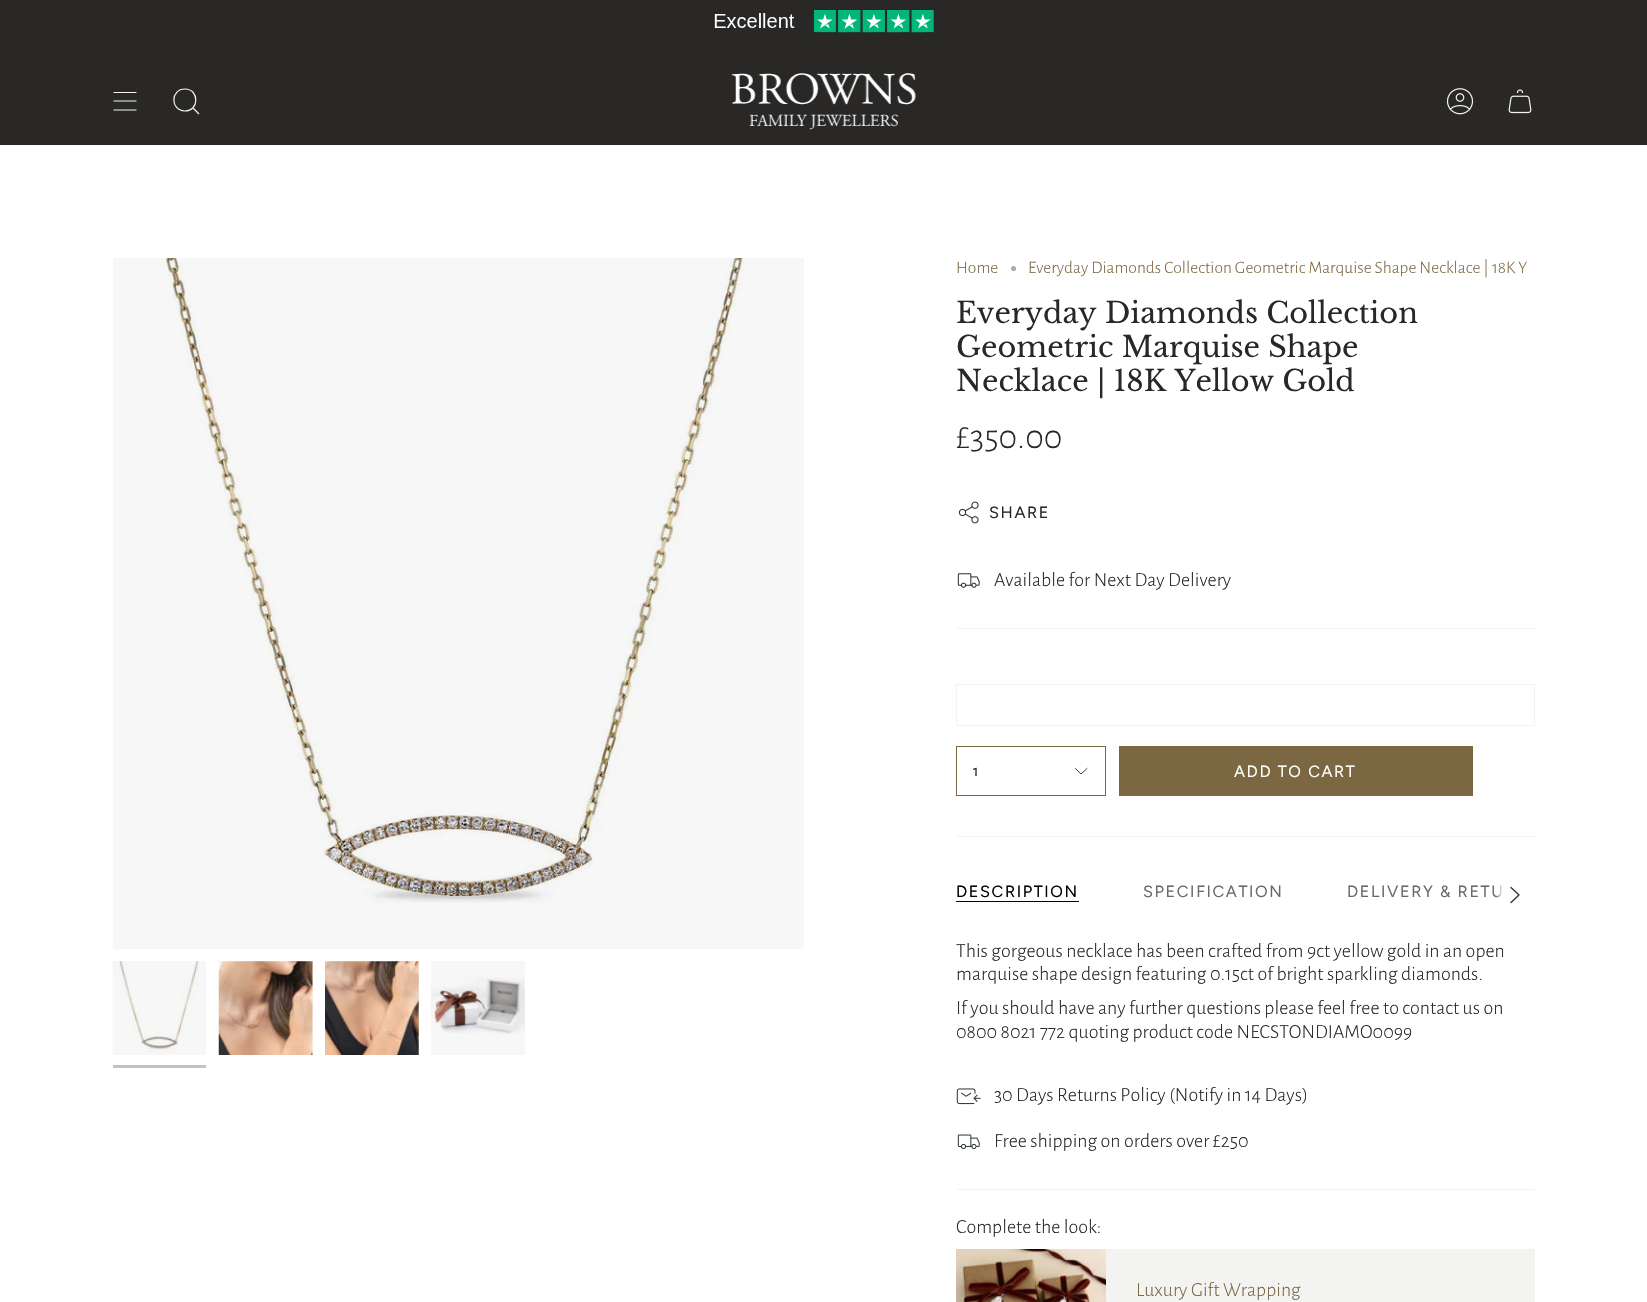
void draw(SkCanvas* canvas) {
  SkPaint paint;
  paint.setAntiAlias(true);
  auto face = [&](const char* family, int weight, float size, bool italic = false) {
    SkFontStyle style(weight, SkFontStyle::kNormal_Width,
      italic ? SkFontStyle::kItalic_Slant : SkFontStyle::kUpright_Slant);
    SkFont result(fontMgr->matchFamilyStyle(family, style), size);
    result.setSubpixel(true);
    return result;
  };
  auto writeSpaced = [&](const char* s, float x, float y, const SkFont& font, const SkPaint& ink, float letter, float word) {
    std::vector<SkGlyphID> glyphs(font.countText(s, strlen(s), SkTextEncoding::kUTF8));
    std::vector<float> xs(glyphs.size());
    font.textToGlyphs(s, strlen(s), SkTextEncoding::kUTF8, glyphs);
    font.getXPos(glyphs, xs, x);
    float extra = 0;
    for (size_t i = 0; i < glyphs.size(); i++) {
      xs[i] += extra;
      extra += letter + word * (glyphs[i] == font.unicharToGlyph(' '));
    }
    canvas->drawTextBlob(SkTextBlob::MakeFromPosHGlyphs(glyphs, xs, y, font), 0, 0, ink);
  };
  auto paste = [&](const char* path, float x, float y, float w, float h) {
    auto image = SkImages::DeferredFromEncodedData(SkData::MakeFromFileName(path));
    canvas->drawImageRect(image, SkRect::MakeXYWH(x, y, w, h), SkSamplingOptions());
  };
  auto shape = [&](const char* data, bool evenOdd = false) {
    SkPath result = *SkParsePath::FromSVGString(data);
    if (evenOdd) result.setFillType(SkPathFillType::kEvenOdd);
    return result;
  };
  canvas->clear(0xffffffff);
  paint.setColor(0xff292827);
  canvas->drawRect(SkRect::MakeXYWH(0, 0, 1647, 145), paint);
  paint.setStroke(true);
  paint.setStrokeWidth(1.2f);
  paint.setStrokeCap(SkPaint::kRound_Cap);
  paint.setStrokeJoin(SkPaint::kRound_Join);
  paint.setColor(0xfff3f4f2);
  canvas->drawPath(shape("M114 92.5H136M114 101H136M114 110H136"), paint);
  paint.setStrokeCap(SkPaint::kButt_Cap);
  paint.setStrokeJoin(SkPaint::kMiter_Join);
  canvas->drawPath(shape("M185 89C199.5 89 199.5 111.5 184.5 111C170 110 170.5 89 185 89ZM192.5 107.5L199 114"), paint);
  paste("img/1.png", 731, 73, 185, 57);
  paste("img/2.png", 1446, 88, 28, 27);
  paste("img/3.png", 1508, 89, 24, 25);
  paint.setStroke(false);
  paint.setColor(0xfff9faf9);
  canvas->drawRect(SkRect::MakeXYWH(0, 145, 1647, 1), paint);
  paste("img/4.png", 714, 10, 220, 23);
  paint.setColor(0xfff7f7f7);
  canvas->drawRect(SkRect::MakeXYWH(113, 258, 691, 691), paint);
  paste("img/5.png", 166, 258, 578, 645);
  canvas->drawRect(SkRect::MakeXYWH(113, 961, 93, 94), paint);
  paste("img/6.png", 112, 961, 87, 94);
  paint.setColor(0xffc0c5bb);
  canvas->drawRect(SkRect::MakeXYWH(113, 1065, 93, 3), paint);
  paint.setColor(0xfff7f7f7);
  canvas->drawRect(SkRect::MakeXYWH(219, 961, 94, 94), paint);
  paste("img/7.png", 218, 961, 95, 94);
  canvas->drawRect(SkRect::MakeXYWH(325, 961, 94, 94), paint);
  paste("img/8.png", 325, 961, 94, 94);
  canvas->drawRect(SkRect::MakeXYWH(431, 961, 94, 94), paint);
  paste("img/9.png", 431, 977, 94, 57);
  paint.setColor(0xffa9a9a9);
  canvas->drawCircle(1013.5f, 268.5f, 2.5f, paint);
  paste("img/10.png", 958, 501, 21, 23);
  paste("img/11.png", 957, 573, 23, 15);
  paint.setColor(0xfff3f4f2);
  canvas->drawRect(SkRect::MakeXYWH(956, 628, 579, 1), paint);
  paint.setStroke(true);
  paint.setStrokeWidth(1);
  canvas->drawRect(SkRect::MakeXYWH(956.5f, 684.5f, 578, 41), paint);
  paint.setColor(0xff7b6741);
  canvas->drawRect(SkRect::MakeXYWH(956.5f, 746.5f, 149, 49), paint);
  paint.setStrokeWidth(0.9f);
  paint.setStrokeCap(SkPaint::kRound_Cap);
  paint.setStrokeJoin(SkPaint::kRound_Join);
  paint.setColor(0xff292827);
  canvas->drawPath(shape("M1075.5 768.5L1081 774L1087 768.5"), paint);
  paint.setStroke(false);
  {
    const struct { float x, y, w, h; SkColor color; } items[] = {
      {1119, 746, 354, 50, 0xff7b6741},
      {956, 836, 579, 1, 0xfff3f4f2},
      {956, 901, 123, 1, 0xff020202},
    };
    for (auto [x, y, w, h, color] : items) {
      paint.setColor(color);
      canvas->drawRect(SkRect::MakeXYWH(x, y, w, h), paint);
    }
  }
  paint.setStroke(true);
  paint.setStrokeWidth(1.2f);
  paint.setColor(0xff292827);
  canvas->drawPath(shape("M1511 887.5L1519 895L1511 902.5"), paint);
  paste("img/12.png", 956, 1088, 25, 17);
  paste("img/13.png", 957, 1134, 23, 15);
  paint.setStroke(false);
  paint.setColor(0xfff3f4f2);
  canvas->drawRect(SkRect::MakeXYWH(956, 1189, 579, 1), paint);
  canvas->drawRect(SkRect::MakeXYWH(1106, 1249, 429, 53), paint);
  paste("img/14.png", 956, 1249, 150, 53);
  auto f0 = face("Alegreya Sans", 300, 17.5f);
  paint.setColor(0xff7b6741);
  canvas->drawString("Home", 956, 273, f0, paint);
  canvas->drawString("Everyday Diamonds Collection Geometric Marquise Shape Necklace | 18K Y", 1028, 273, f0, paint);
  auto f1 = face("Libre Baskerville", 400, 28.75f);
  paint.setColor(0xff292827);
  {
    const struct { const char* s; float x, y; } items[] = {
      {"Everyday Diamonds Collection", 956, 323},
      {"Geometric Marquise Shape", 956, 357},
      {"Necklace | 18K Yellow Gold", 956, 391},
    };
    for (auto [s, x, y] : items) {
      canvas->drawString(s, x, y, f1, paint);
    }
  }
  auto f2 = face("Alegreya Sans", 300, 35);
  canvas->drawString("£350.00", 956, 448, f2, paint);
  auto f3 = face("Figtree", 400, 16.25f);
  writeSpaced("SHARE", 989, 518, f3, paint, 1.6f, 0);
  auto f4 = face("Alegreya Sans", 300, 20);
  canvas->drawString("Available for Next Day Delivery", 994, 586, f4, paint);
  auto f5 = face("Alegreya Sans", 400, 16.25f);
  canvas->drawString("1", 973, 776, f5, paint);
  paint.setColor(0xffffffff);
  writeSpaced("ADD TO CART", 1234, 777, f3, paint, 1.6f, 0);
  paint.setColor(0xff020202);
  writeSpaced("DESCRIPTION", 956, 897, f3, paint, 1.6f, 0);
  paint.setColor(0xff696968);
  writeSpaced("SPECIFICATION", 1143, 897, f3, paint, 1.6f, 0);
  writeSpaced("DELIVERY & RETU", 1347, 897, f3, paint, 1.6f, 0);
  {
    const SkColor colors[] = {0xffffffff, 0x00ffffff};
    const float stops[] = {0.78f, 1};
    const SkPoint ends[] = {{1535, 895}, {1495, 895}};
    paint.setShader(SkGradientShader::MakeLinear(ends, colors, stops, 2, SkTileMode::kClamp));
    paint.setAlpha(255);
  }
  canvas->drawRect(SkRect::MakeXYWH(1495, 885, 7, 13), paint);
  paint.setShader(nullptr);
  paint.setColor(0xff292827);
  {
    const struct { const char* s; float x, y; } items[] = {
      {"This gorgeous necklace has been crafted from 9ct yellow gold in an open", 956, 957},
      {"marquise shape design featuring 0.15ct of bright sparkling diamonds.", 956, 980},
      {"If you should have any further questions please feel free to contact us on", 956, 1014},
      {"0800 8021 772 quoting product code NECSTONDIAMO0099", 956, 1038},
      {"30 Days Returns Policy (Notify in 14 Days)", 994, 1101},
      {"Free shipping on orders over £250", 994, 1147},
      {"Complete the look:", 956, 1233},
    };
    for (auto [s, x, y] : items) {
      canvas->drawString(s, x, y, f4, paint);
    }
  }
  paint.setColor(0xff7b6741);
  canvas->drawString("Luxury Gift Wrapping", 1136, 1296, f4, paint);
}
